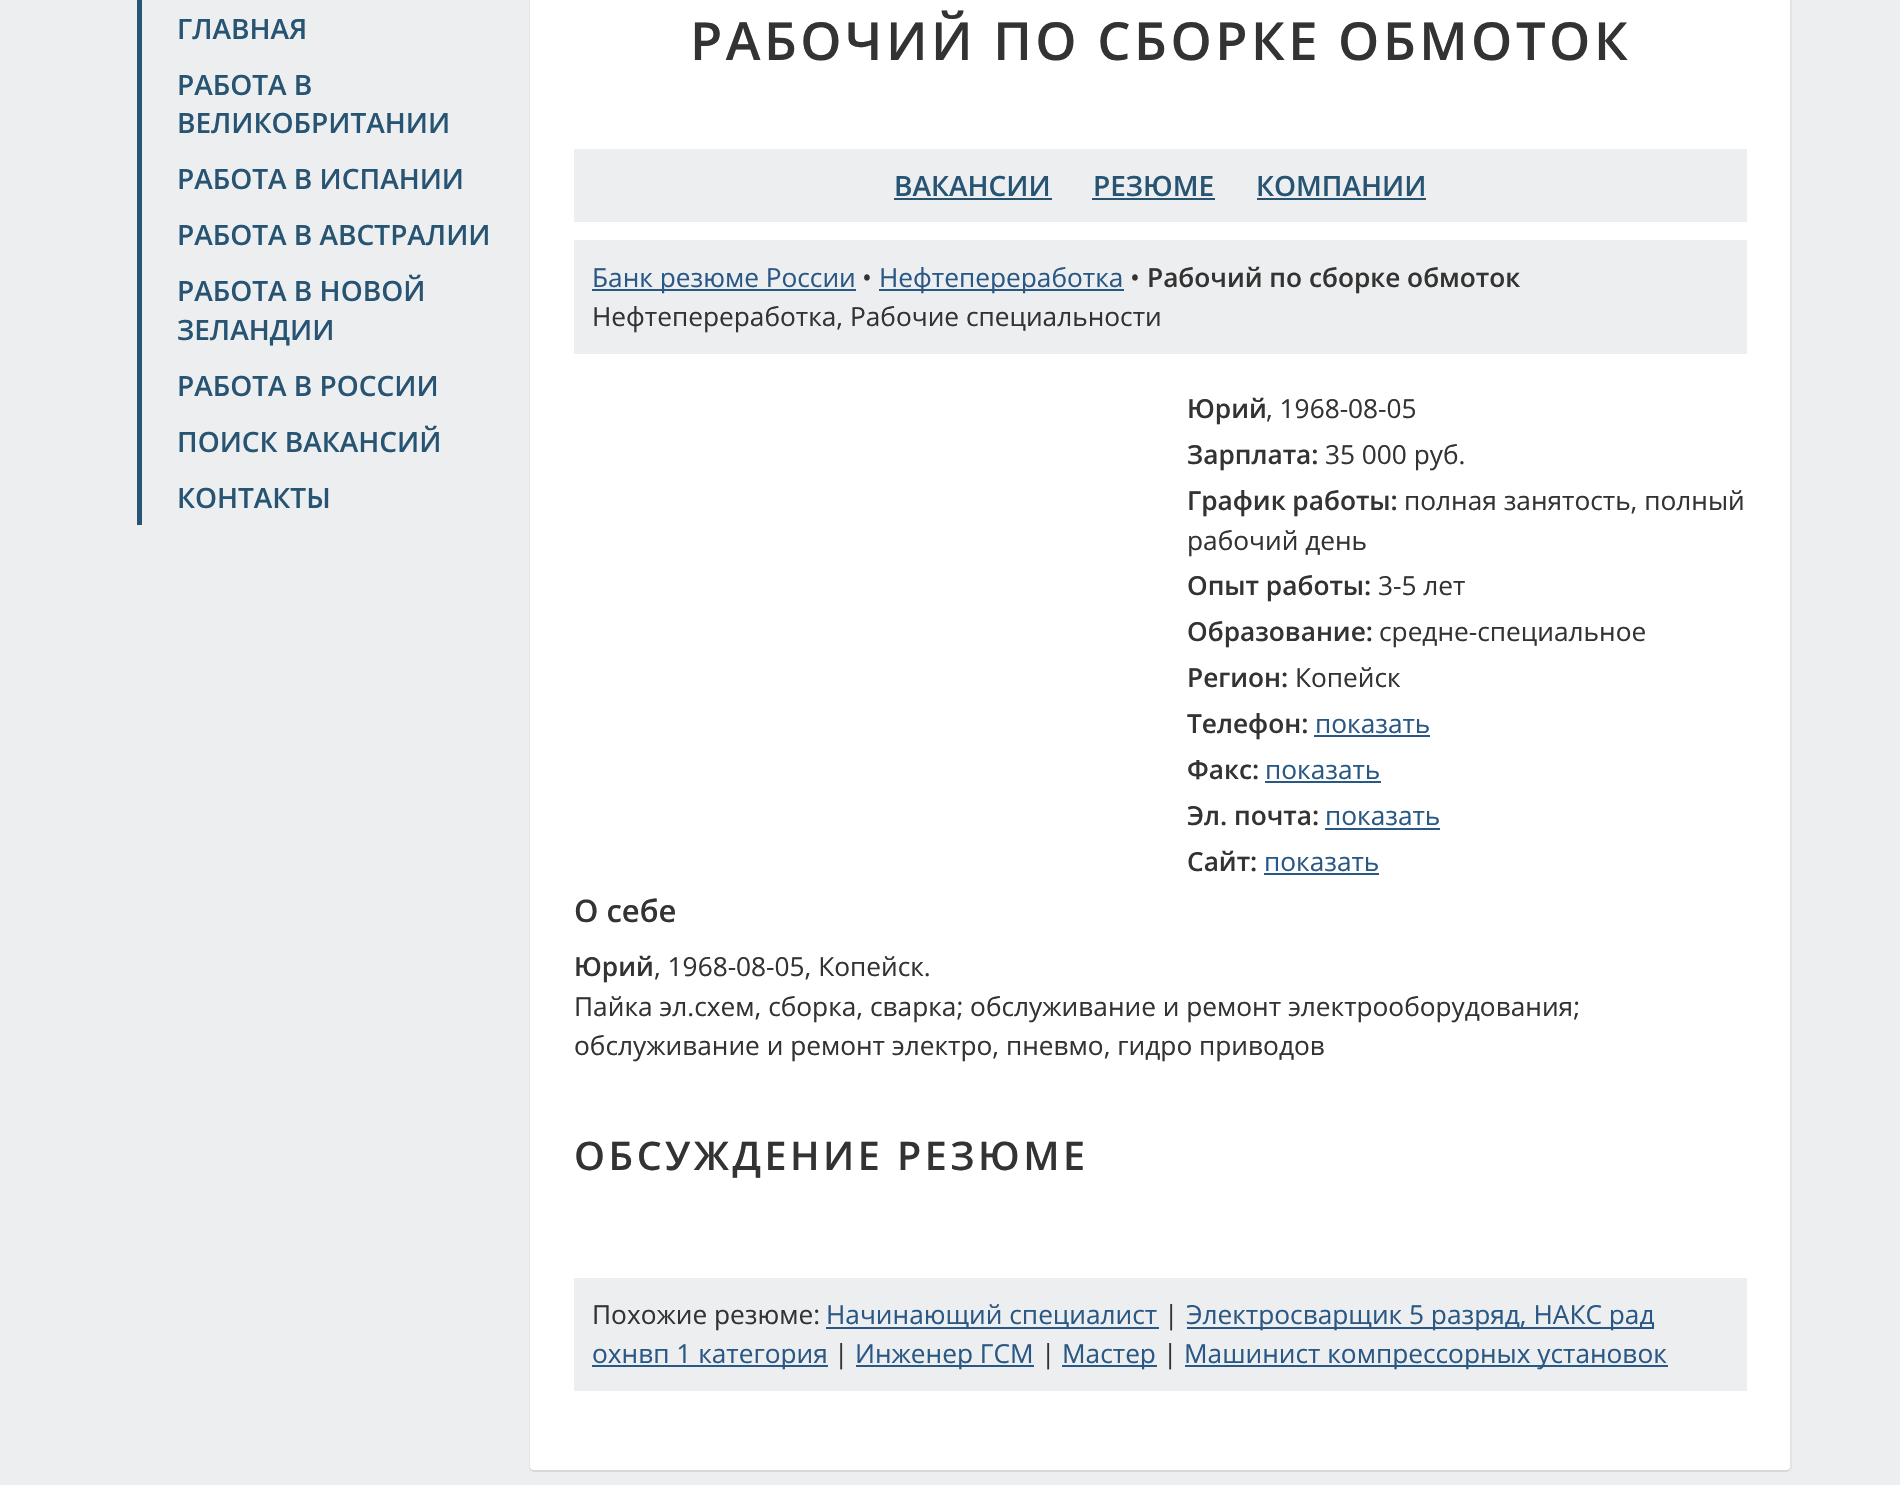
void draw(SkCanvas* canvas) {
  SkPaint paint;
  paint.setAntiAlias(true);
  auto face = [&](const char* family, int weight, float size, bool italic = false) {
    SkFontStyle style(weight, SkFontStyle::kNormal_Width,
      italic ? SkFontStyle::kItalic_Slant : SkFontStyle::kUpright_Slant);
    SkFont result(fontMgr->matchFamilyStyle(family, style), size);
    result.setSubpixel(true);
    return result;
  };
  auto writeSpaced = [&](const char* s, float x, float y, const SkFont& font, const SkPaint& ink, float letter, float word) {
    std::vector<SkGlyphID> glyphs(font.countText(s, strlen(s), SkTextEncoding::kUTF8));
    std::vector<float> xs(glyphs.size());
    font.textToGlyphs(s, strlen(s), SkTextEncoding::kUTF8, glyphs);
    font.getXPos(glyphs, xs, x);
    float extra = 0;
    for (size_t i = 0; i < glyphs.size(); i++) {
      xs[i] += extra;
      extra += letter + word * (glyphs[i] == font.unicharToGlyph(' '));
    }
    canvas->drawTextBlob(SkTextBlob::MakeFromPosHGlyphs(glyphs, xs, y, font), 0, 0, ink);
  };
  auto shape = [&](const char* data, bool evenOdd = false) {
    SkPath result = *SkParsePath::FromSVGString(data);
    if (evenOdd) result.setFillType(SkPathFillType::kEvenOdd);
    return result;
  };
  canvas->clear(0xffedeef0);
  paint.setColor(0xff285473);
  canvas->drawRect(SkRect::MakeXYWH(137, 0, 5, 525), paint);
  paint.setStroke(true);
  paint.setStrokeWidth(2);
  paint.setColor(0xffe3e4e8);
  canvas->drawRoundRect(SkRect::MakeXYWH(530, -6, 1261, 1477), 4, 4, paint);
  paint.setStroke(false);
  paint.setColor(0xffd7d8db);
  canvas->drawPath(shape("M530-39V1468C530 1470 532 1472 534 1472H1786C1788 1472 1790 1470 1790 1468C1789 1469 1788 1470 1787 1470H534C532 1470 530 1468 530 1466Z"), paint);
  paint.setColor(0xffffffff);
  canvas->drawRoundRect(SkRect::MakeXYWH(530, -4, 1260, 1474), 4, 4, paint);
  {
    const struct { float x, y, w, h; SkColor color; } items[] = {
      {574, 149, 1173, 73, 0xffedeef0},
      {894, 198, 158, 2, 0xff285473},
      {1092, 198, 123, 2, 0xff285473},
      {1257, 198, 169, 2, 0xff285473},
      {574, 240, 1173, 114, 0xffedeef0},
      {592, 289, 264, 2, 0xff2a5885},
      {879, 289, 245, 2, 0xff2a5885},
      {1314, 735, 116, 2, 0xff2a5885},
      {1265, 781, 116, 2, 0xff2a5885},
      {1325, 828, 115, 2, 0xff2a5885},
      {1264, 873, 115, 2, 0xff2a5885},
      {574, 1278, 1173, 113, 0xffedeef0},
      {826, 1327, 333, 2, 0xff2a5885},
      {1187, 1327, 467, 2, 0xff2a5885},
      {592, 1365, 236, 2, 0xff2a5885},
      {856, 1365, 178, 2, 0xff2a5885},
      {1062, 1365, 95, 2, 0xff2a5885},
      {1185, 1365, 483, 2, 0xff2a5885},
    };
    for (auto [x, y, w, h, color] : items) {
      paint.setColor(color);
      canvas->drawRect(SkRect::MakeXYWH(x, y, w, h), paint);
    }
  }
  auto f0 = face("Open Sans", 600, 28);
  paint.setColor(0xff285473);
  {
    const struct { const char* s; float x, y; } items[] = {
      {"ГЛАВНАЯ", 177, 39},
      {"РАБОТА В", 177, 95},
      {"ВЕЛИКОБРИТАНИИ", 177, 133},
      {"РАБОТА В ИСПАНИИ", 177, 189},
      {"РАБОТА В АВСТРАЛИИ", 177, 245},
      {"РАБОТА В НОВОЙ", 177, 301},
      {"ЗЕЛАНДИИ", 177, 340},
      {"РАБОТА В РОССИИ", 177, 396},
      {"ПОИСК ВАКАНСИЙ", 177, 452},
      {"КОНТАКТЫ", 177, 508},
    };
    for (auto [s, x, y] : items) {
      canvas->drawString(s, x, y, f0, paint);
    }
  }
  auto f1 = face("Open Sans", 600, 52.5f);
  paint.setColor(0xff333333);
  writeSpaced("РАБОЧИЙ ПО СБОРКЕ ОБМОТОК", 690, 60, f1, paint, 3.5f, 0);
  paint.setColor(0xff285473);
  {
    const struct { const char* s; float x, y; } items[] = {
      {"ВАКАНСИИ", 894, 196},
      {"РЕЗЮМЕ", 1093, 196},
      {"КОМПАНИИ", 1256, 196},
    };
    for (auto [s, x, y] : items) {
      canvas->drawString(s, x, y, f0, paint);
    }
  }
  auto f2 = face("Open Sans", 400, 26.25f);
  paint.setColor(0xff2a5885);
  canvas->drawString("Банк резюме России", 592, 287, f2, paint);
  paint.setColor(0xff333333);
  canvas->drawString("•", 862, 287, f2, paint);
  paint.setColor(0xff2a5885);
  canvas->drawString("Нефтепереработка", 879, 287, f2, paint);
  paint.setColor(0xff333333);
  canvas->drawString("•", 1130, 287, f2, paint);
  auto f3 = face("Open Sans", 600, 26.25f);
  canvas->drawString("Рабочий по сборке обмоток", 1147, 287, f3, paint);
  canvas->drawString("Нефтепереработка, Рабочие специальности", 592, 326, f2, paint);
  canvas->drawString("Юрий", 1187, 418, f3, paint);
  canvas->drawString(", 1968-08-05", 1266, 418, f2, paint);
  canvas->drawString("Зарплата:", 1187, 464, f3, paint);
  canvas->drawString("35 000 руб.", 1325, 464, f2, paint);
  canvas->drawString("График работы:", 1187, 510, f3, paint);
  canvas->drawString("полная занятость, полный", 1404, 510, f2, paint);
  canvas->drawString("рабочий день", 1187, 550, f2, paint);
  canvas->drawString("Опыт работы:", 1187, 595, f3, paint);
  canvas->drawString("3-5 лет", 1378, 595, f2, paint);
  canvas->drawString("Образование:", 1187, 641, f3, paint);
  canvas->drawString("средне-специальное", 1379, 641, f2, paint);
  canvas->drawString("Регион:", 1187, 687, f3, paint);
  canvas->drawString("Копейск", 1295, 687, f2, paint);
  canvas->drawString("Телефон:", 1187, 733, f3, paint);
  paint.setColor(0xff2a5885);
  canvas->drawString("показать", 1315, 733, f2, paint);
  paint.setColor(0xff333333);
  canvas->drawString("Факс:", 1187, 779, f3, paint);
  paint.setColor(0xff2a5885);
  canvas->drawString("показать", 1265, 779, f2, paint);
  paint.setColor(0xff333333);
  canvas->drawString("Эл. почта:", 1187, 825, f3, paint);
  paint.setColor(0xff2a5885);
  canvas->drawString("показать", 1325, 825, f2, paint);
  paint.setColor(0xff333333);
  canvas->drawString("Сайт:", 1187, 871, f3, paint);
  paint.setColor(0xff2a5885);
  canvas->drawString("показать", 1264, 871, f2, paint);
  auto f4 = face("Open Sans", 600, 31);
  paint.setColor(0xff333333);
  canvas->drawString("О себе", 574, 922, f4, paint);
  canvas->drawString("Юрий", 574, 976, f3, paint);
  {
    const struct { const char* s; float x, y; } items[] = {
      {", 1968-08-05, Копейск.", 654, 976},
      {"Пайка эл.схем, сборка, сварка; обслуживание и ремонт электрооборудования;", 574, 1016},
      {"обслуживание и ремонт электро, пневмо, гидро приводов", 574, 1055},
    };
    for (auto [s, x, y] : items) {
      canvas->drawString(s, x, y, f2, paint);
    }
  }
  auto f5 = face("Open Sans", 600, 39.4f);
  writeSpaced("ОБСУЖДЕНИЕ РЕЗЮМЕ", 574, 1170, f5, paint, 3.5f, 0);
  canvas->drawString("Похожие резюме:", 592, 1324, f2, paint);
  paint.setColor(0xff2a5885);
  canvas->drawString("Начинающий специалист", 826, 1324, f2, paint);
  paint.setColor(0xff333333);
  canvas->drawString("|", 1164, 1324, f2, paint);
  paint.setColor(0xff2a5885);
  canvas->drawString("Электросварщик 5 разряд, НАКС рад", 1186, 1324, f2, paint);
  canvas->drawString("охнвп 1 категория", 592, 1363, f2, paint);
  paint.setColor(0xff333333);
  canvas->drawString("|", 834, 1363, f2, paint);
  paint.setColor(0xff2a5885);
  canvas->drawString("Инженер ГСМ", 855, 1363, f2, paint);
  paint.setColor(0xff333333);
  canvas->drawString("|", 1041, 1363, f2, paint);
  paint.setColor(0xff2a5885);
  canvas->drawString("Мастер", 1062, 1363, f2, paint);
  paint.setColor(0xff333333);
  canvas->drawString("|", 1163, 1363, f2, paint);
  paint.setColor(0xff2a5885);
  canvas->drawString("Машинист компрессорных установок", 1184, 1363, f2, paint);
}
